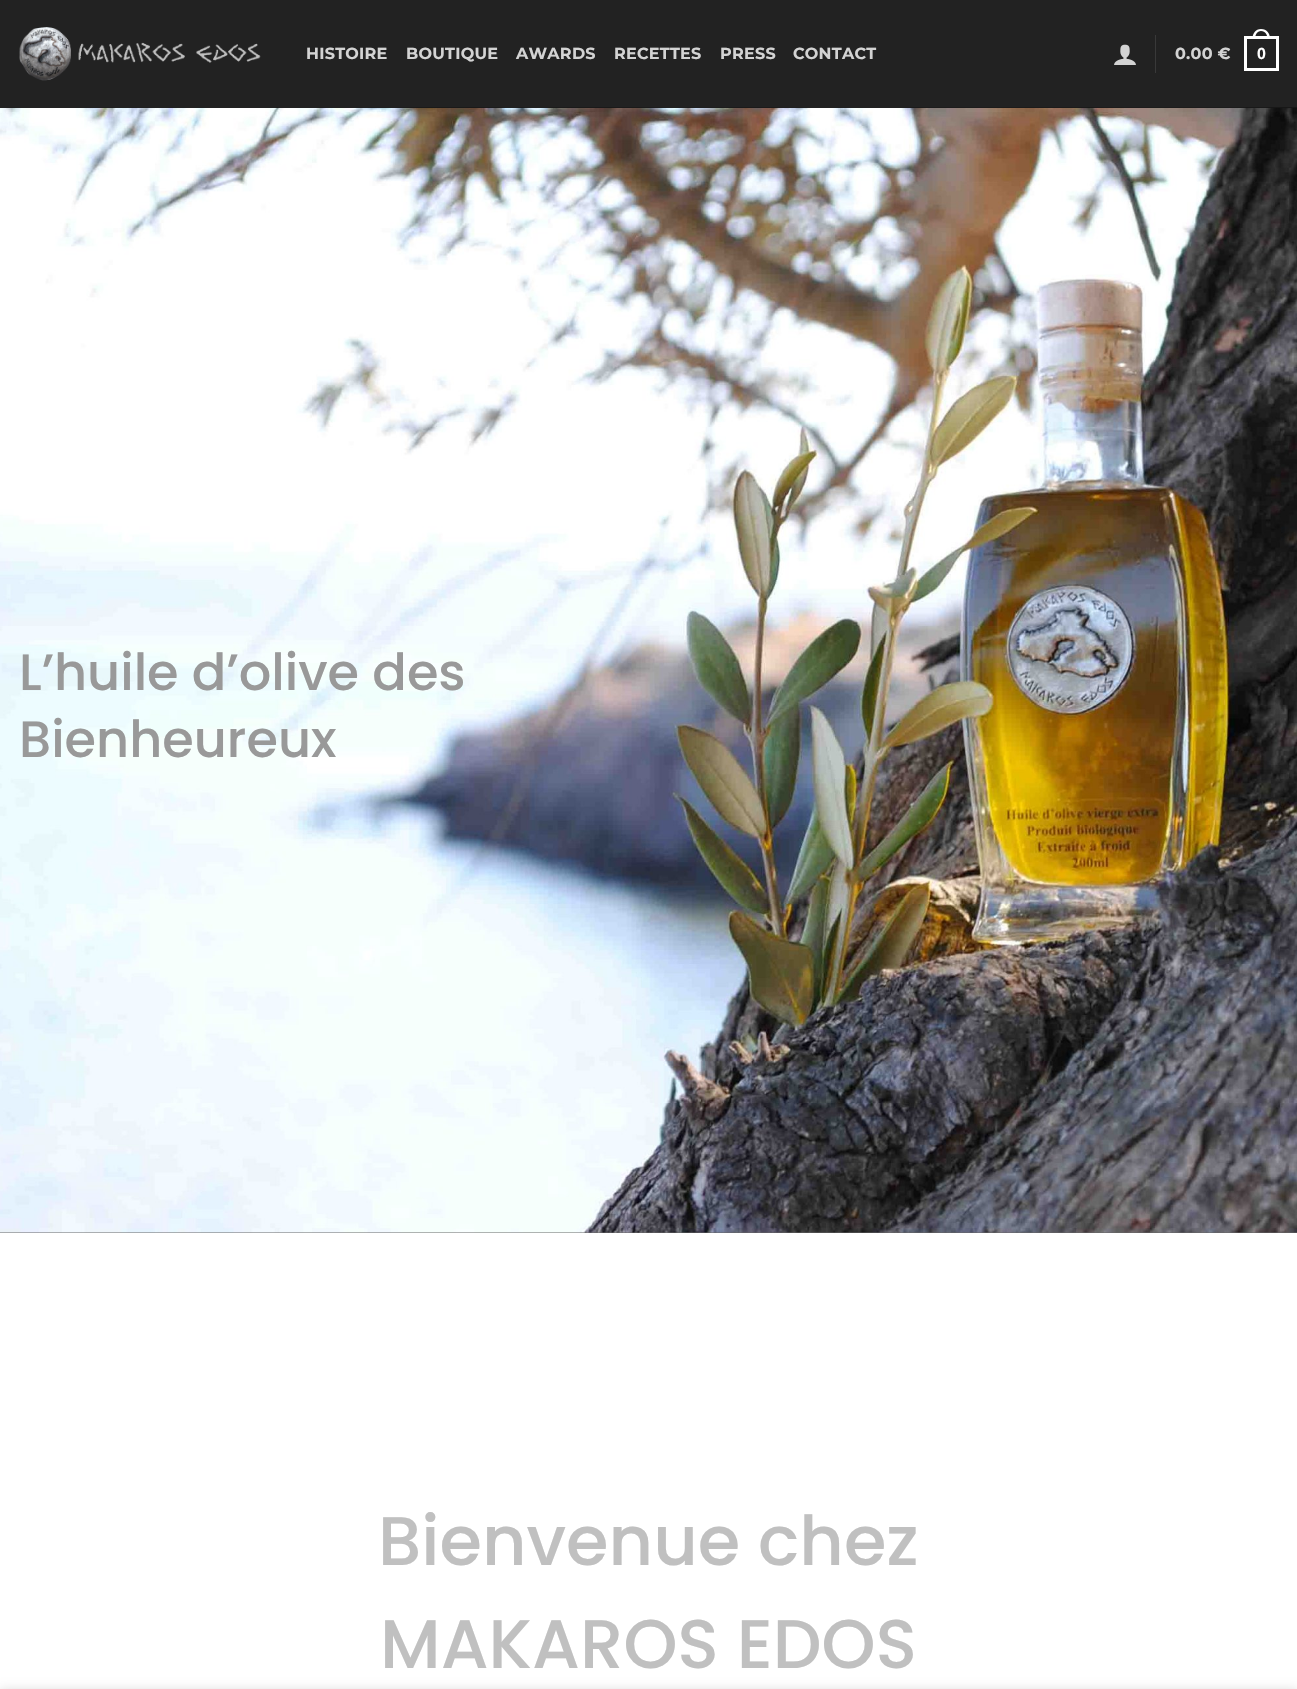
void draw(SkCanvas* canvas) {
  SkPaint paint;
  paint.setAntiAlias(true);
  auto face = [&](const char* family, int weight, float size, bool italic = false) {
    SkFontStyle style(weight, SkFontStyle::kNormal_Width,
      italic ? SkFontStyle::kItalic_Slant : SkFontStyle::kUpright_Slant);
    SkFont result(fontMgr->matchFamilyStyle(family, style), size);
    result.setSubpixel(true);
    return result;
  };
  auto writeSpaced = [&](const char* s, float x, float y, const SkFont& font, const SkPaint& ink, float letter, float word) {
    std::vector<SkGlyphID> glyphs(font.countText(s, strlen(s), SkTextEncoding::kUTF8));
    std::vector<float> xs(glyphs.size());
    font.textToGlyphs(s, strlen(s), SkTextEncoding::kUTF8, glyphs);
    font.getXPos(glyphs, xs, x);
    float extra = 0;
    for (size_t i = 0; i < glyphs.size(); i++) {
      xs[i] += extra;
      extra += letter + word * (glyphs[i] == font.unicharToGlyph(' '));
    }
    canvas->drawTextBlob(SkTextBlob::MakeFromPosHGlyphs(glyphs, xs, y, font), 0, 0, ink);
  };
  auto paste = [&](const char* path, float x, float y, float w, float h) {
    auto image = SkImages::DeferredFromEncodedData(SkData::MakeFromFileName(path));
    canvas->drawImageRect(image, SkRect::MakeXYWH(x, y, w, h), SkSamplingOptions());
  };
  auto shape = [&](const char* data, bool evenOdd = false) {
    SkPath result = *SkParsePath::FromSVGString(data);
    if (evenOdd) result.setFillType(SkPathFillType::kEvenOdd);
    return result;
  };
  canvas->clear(0xffffffff);
  paint.setColor(0xff666666);
  canvas->drawRect(SkRect::MakeXYWH(0, 1232, 1297, 1), paint);
  paste("img/3.png", 0, 107, 1297, 1126);
  paint.setColor(0xe60a0a0a);
  canvas->drawRect(SkRect::MakeXYWH(0, 0, 1297, 108), paint);
  paste("img/1.png", 19, 27, 242, 54);
  paste("img/2.png", 1114, 44, 22, 21);
  paint.setColor(0xff393939);
  canvas->drawRect(SkRect::MakeXYWH(1155, 35, 1, 38), paint);
  paint.setStroke(true);
  paint.setStrokeWidth(3);
  paint.setColor(0xffffffff);
  canvas->drawRect(SkRect::MakeXYWH(1245.5f, 37.5f, 32, 32), paint);
  paint.setStroke(false);
  canvas->drawPath(shape("M1261 29C1267 29 1270 33.5 1270 39H1252.5C1252.5 33.5 1255.5 29 1261 29ZM1261 31C1265.5 31 1267.5 35 1267.5 39H1255C1255 35 1257 31 1261 31Z", true), paint);
  paint.setColor(0x24000000);
  paint.setMaskFilter(SkMaskFilter::MakeBlur(kNormal_SkBlurStyle, 5.5f));
  canvas->drawRect(SkRect::MakeXYWH(0, 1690, 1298, 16), paint);
  paint.setMaskFilter(nullptr);
  auto f0 = face("Montserrat", 700, 16);
  paint.setColor(0xffd3d3d3);
  {
    const struct { const char* s; float x, y; } items[] = {
      {"HISTOIRE", 306, 59},
      {"BOUTIQUE", 406, 59},
      {"AWARDS", 516, 59},
      {"RECETTES", 614, 59},
      {"PRESS", 720, 59},
      {"CONTACT", 793, 59},
      {"0.00 €", 1175, 59},
    };
    for (auto [s, x, y] : items) {
      writeSpaced(s, x, y, f0, paint, 0.25f, 0);
    }
  }
  auto f1 = face("Liberation Sans", 700, 16);
  paint.setColor(0xffffffff);
  writeSpaced("0", 1257, 59, f1, paint, 0.25f, 0);
  auto f2 = face("Poppins", 500, 51);
  paint.setColor(0xff999999);
  canvas->drawString("L’huile d’olive des", 19, 690, f2, paint);
  canvas->drawString("Bienheureux", 19, 757, f2, paint);
  auto f3 = face("Poppins", 500, 68.75f);
  paint.setColor(0xffc0c0c0);
  canvas->drawString("Bienvenue chez", 378, 1565, f3, paint);
  canvas->drawString("MAKAROS EDOS", 380, 1668, f3, paint);
}
